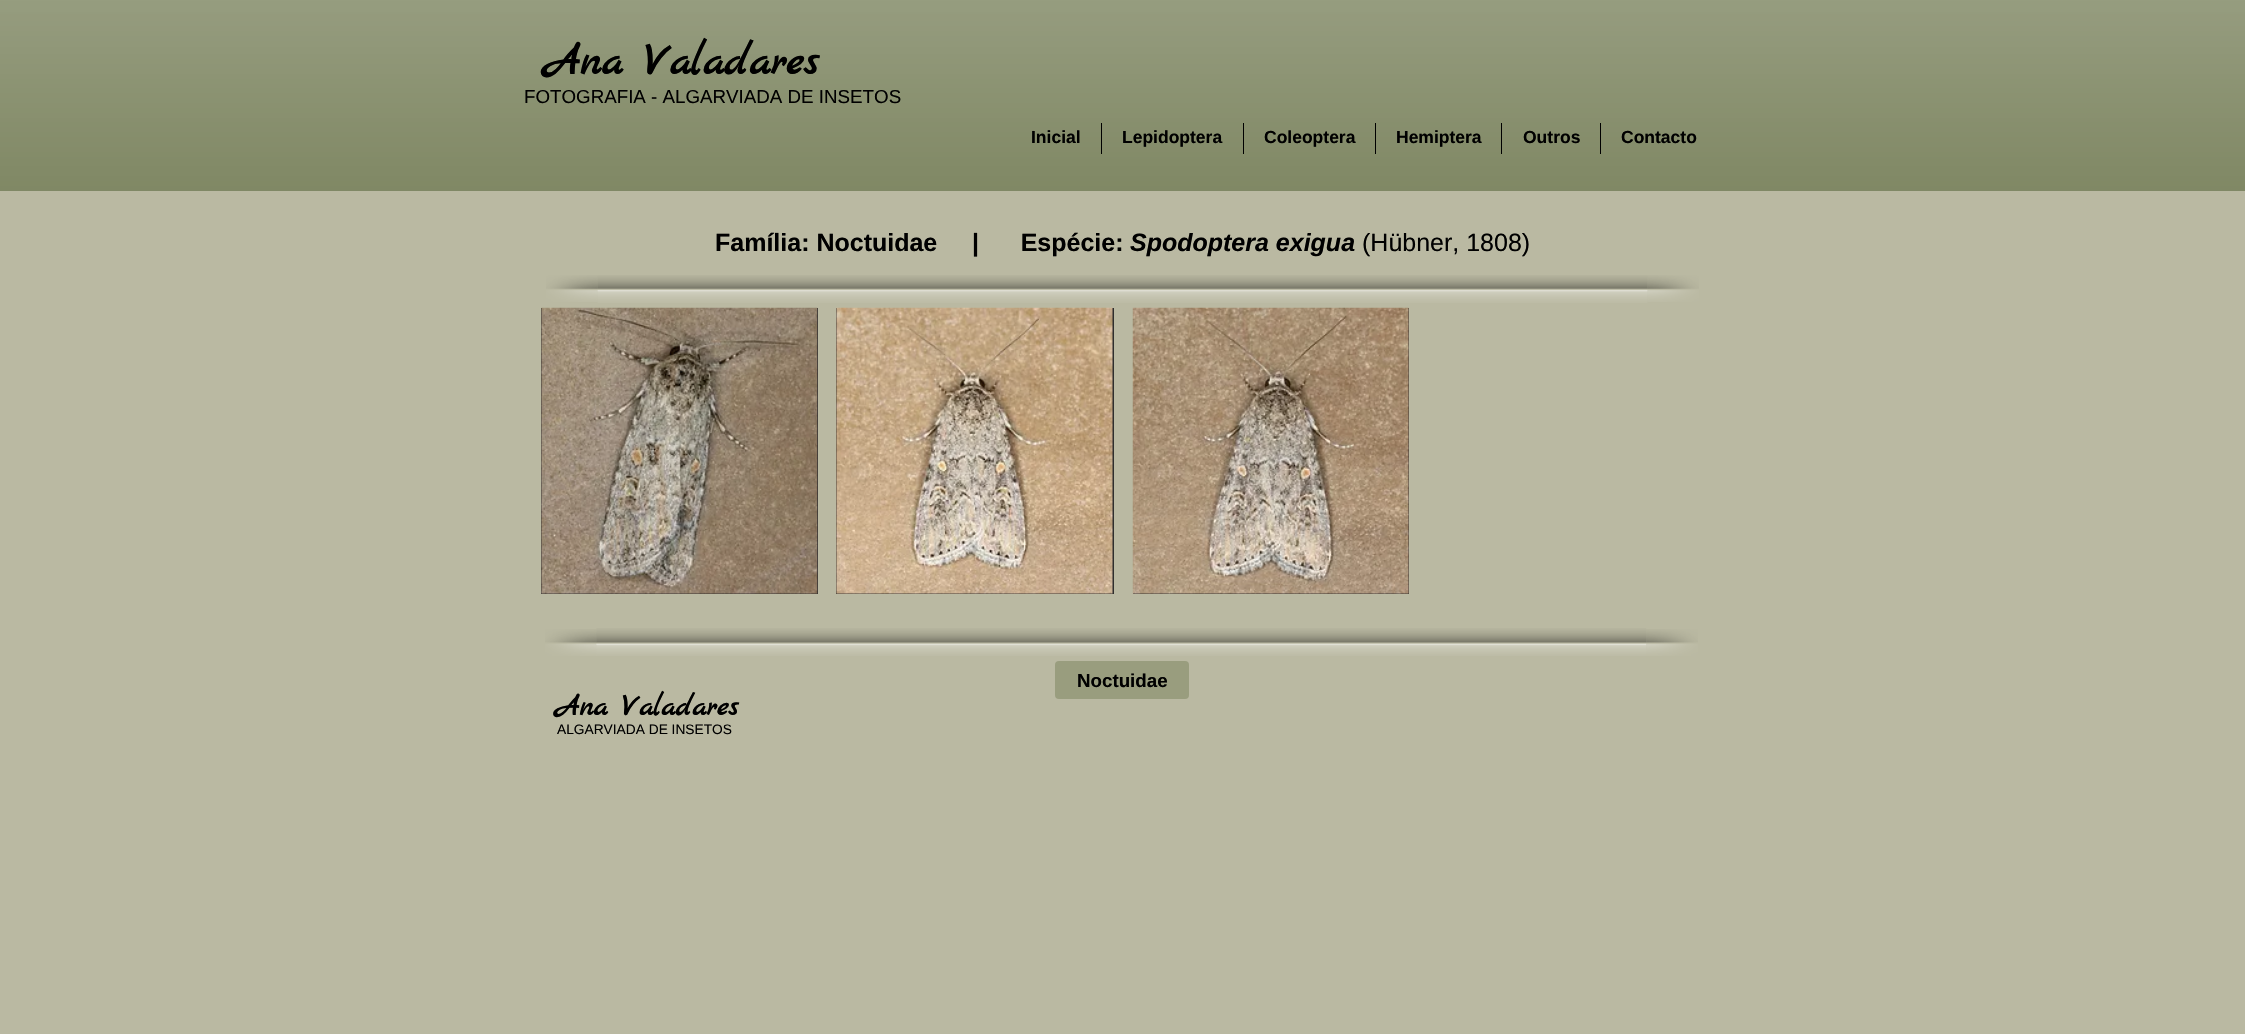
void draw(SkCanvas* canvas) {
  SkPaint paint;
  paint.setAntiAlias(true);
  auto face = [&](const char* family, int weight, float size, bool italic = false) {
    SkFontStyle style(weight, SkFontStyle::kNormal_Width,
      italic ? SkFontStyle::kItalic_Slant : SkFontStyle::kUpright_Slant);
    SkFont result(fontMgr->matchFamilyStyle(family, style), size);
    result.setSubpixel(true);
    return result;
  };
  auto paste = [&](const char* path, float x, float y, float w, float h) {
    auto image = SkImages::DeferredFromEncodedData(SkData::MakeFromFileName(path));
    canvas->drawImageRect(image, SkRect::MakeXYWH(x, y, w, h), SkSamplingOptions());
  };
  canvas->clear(0xffbab9a2);
  paint.setColor(0xff717a52);
  canvas->drawRect(SkRect::MakeXYWH(0, 0, 2245, 191), paint);
  paste("img/1.png", 0, 0, 2245, 191);
  {
    const struct { float x, y, w, h; SkColor color; } items[] = {
      {1101, 123, 1, 31, 0xff000000},
      {1243, 123, 1, 31, 0xff000000},
      {1375, 123, 1, 31, 0xff000000},
      {1501, 123, 1, 31, 0xff000000},
      {1600, 123, 1, 31, 0xff000000},
    };
    for (auto [x, y, w, h, color] : items) {
      paint.setColor(color);
      canvas->drawRect(SkRect::MakeXYWH(x, y, w, h), paint);
    }
  }
  paste("img/2.png", 597, 275, 1051, 28);
  paste("img/3.png", 546, 275, 52, 27);
  paste("img/4.png", 1647, 275, 52, 27);
  paint.setColor(0xff2f2e2e);
  canvas->drawRect(SkRect::MakeXYWH(541, 308, 277, 286), paint);
  paste("img/5.png", 541, 307, 277, 287);
  canvas->drawRect(SkRect::MakeXYWH(1133, 308, 276, 286), paint);
  paste("img/6.png", 1132, 307, 277, 287);
  canvas->drawRect(SkRect::MakeXYWH(836, 308, 278, 286), paint);
  paste("img/7.png", 836, 307, 277, 287);
  paste("img/8.png", 596, 628, 1051, 28);
  paste("img/9.png", 545, 629, 52, 27);
  paste("img/10.png", 1646, 629, 52, 27);
  paint.setColor(0xff999d7e);
  canvas->drawRoundRect(SkRect::MakeXYWH(1055, 661, 134, 38), 4, 4, paint);
  auto f0 = face("Marck Script", 700, 45);
  paint.setColor(0xff000000);
  canvas->drawString("Ana Valadares", 545, 74, f0, paint);
  auto f1 = face("Liberation Sans", 400, 18.75f);
  canvas->drawString("FOTOGRAFIA - ALGARVIADA DE INSETOS", 524, 103, f1, paint);
  auto f2 = face("Liberation Sans", 700, 17.5f);
  {
    const struct { const char* s; float x, y; } items[] = {
      {"Inicial", 1031, 143},
      {"Lepidoptera", 1122, 143},
      {"Coleoptera", 1264, 143},
      {"Hemiptera", 1396, 143},
      {"Outros", 1523, 143},
      {"Contacto", 1621, 143},
    };
    for (auto [s, x, y] : items) {
      canvas->drawString(s, x, y, f2, paint);
    }
  }
  auto f3 = face("Liberation Sans", 700, 25);
  canvas->drawString("Família: Noctuidae     |      Espécie:", 715, 251, f3, paint);
  auto f4 = face("Liberation Sans", 700, 25, true);
  canvas->drawString("Spodoptera exigua", 1130, 251, f4, paint);
  auto f5 = face("Liberation Sans", 400, 25);
  canvas->drawString("(Hübner, 1808)", 1362, 251, f5, paint);
  auto f6 = face("Raleway", 400, 20, true);
  paint.setColor(0xff978c7d);
  canvas->drawString("i", 710, 433, f6, paint);
  auto f7 = face("Raleway", 400, 15);
  paint.setColor(0xffbea78b);
  canvas->drawString(".", 908, 480, f7, paint);
  auto f8 = face("Liberation Sans", 700, 18.75f);
  paint.setColor(0xff000000);
  canvas->drawString("Noctuidae", 1077, 687, f8, paint);
  auto f9 = face("Marck Script", 700, 30);
  canvas->drawString("Ana Valadares", 556, 715, f9, paint);
  auto f10 = face("Liberation Sans", 400, 13.75f);
  canvas->drawString("ALGARVIADA DE INSETOS", 557, 734, f10, paint);
}
